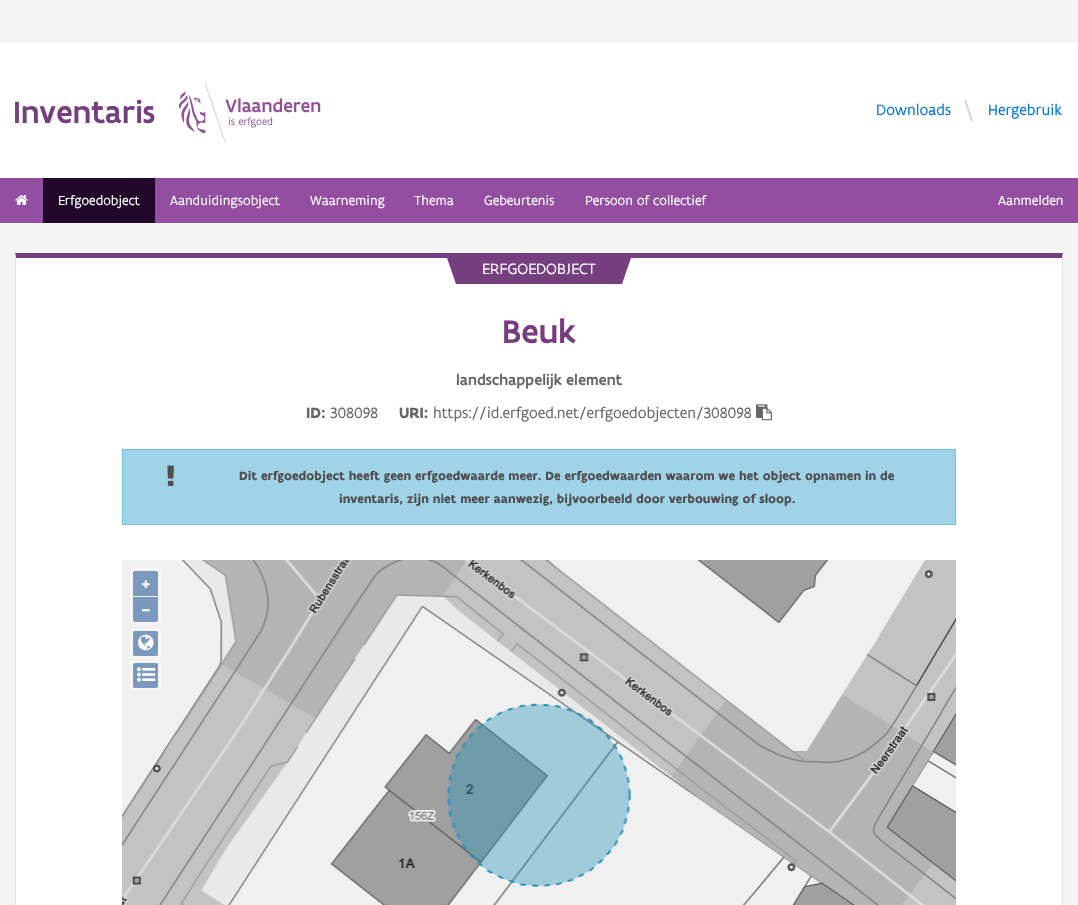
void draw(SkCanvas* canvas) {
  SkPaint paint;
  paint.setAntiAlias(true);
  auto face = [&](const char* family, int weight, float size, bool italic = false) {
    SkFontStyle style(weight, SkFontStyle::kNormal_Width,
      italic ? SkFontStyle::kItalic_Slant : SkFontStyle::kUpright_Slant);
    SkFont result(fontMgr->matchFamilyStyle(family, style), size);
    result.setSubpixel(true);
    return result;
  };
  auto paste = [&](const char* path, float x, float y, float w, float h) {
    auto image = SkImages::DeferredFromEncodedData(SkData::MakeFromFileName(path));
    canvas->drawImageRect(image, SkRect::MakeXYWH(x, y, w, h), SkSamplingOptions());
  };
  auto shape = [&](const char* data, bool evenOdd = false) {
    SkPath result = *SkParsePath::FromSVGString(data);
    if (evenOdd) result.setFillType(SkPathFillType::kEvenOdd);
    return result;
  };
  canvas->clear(0xfff5f5f5);
  paint.setColor(0xffffffff);
  canvas->drawRect(SkRect::MakeXYWH(0, 43, 1078, 135), paint);
  paste("img/1.png", 178, 83, 143, 60);
  paint.setColor(0xffd1d8df);
  canvas->drawPath(shape("M964 100L966 99.5L973 121L971 121.5Z"), paint);
  paint.setColor(0xff944ea1);
  canvas->drawRect(SkRect::MakeXYWH(0, 178, 1078, 45), paint);
  paste("img/2.png", 15, 195, 13, 10);
  paint.setColor(0xff210729);
  canvas->drawRect(SkRect::MakeXYWH(43, 178, 112, 45), paint);
  paint.setColor(0xffffffff);
  canvas->drawRect(SkRect::MakeXYWH(16, 258, 1046, 647), paint);
  paint.setColor(0xff753f7f);
  canvas->drawPath(shape("M15 253H1063L1062 258H16Z"), paint);
  paint.setColor(0xffe3e3e3);
  canvas->drawPath(shape("M1063 253V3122L1062 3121V258Z"), paint);
  canvas->drawPath(shape("M15 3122V253L16 258V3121Z"), paint);
  paint.setColor(0xff753f7f);
  canvas->drawPath(shape("M447 258H593L602 284H456Z"), paint);
  canvas->drawPath(shape("M485 258H631L622 284H476Z"), paint);
  paste("img/3.png", 756, 404, 16, 17);
  paint.setColor(0xffa0d3e8);
  canvas->drawRect(SkRect::MakeXYWH(122.5f, 449.5f, 833, 75), paint);
  paint.setStroke(true);
  paint.setStrokeWidth(1);
  paint.setColor(0xff74bfdd);
  canvas->drawRect(SkRect::MakeXYWH(122.5f, 449.5f, 833, 75), paint);
  paste("img/4.png", 167, 465, 7, 21);
  paste("img/5.png", 122, 560, 834, 345);
  paint.setStroke(false);
  paint.setColor(0xfff6f6f6);
  canvas->drawRoundRect(SkRect::MakeXYWH(130, 568, 31, 57), 4, 4, paint);
  paint.setColor(0xff7b99bf);
  canvas->drawPath(shape("M135 571H156C157 571 158 572 158 573V596H133V573C133 572 134 571 135 571Z"), paint);
  canvas->drawPath(shape("M133 597H158V620C158 621 157 622 156 622H135C134 622 133 621 133 620Z"), paint);
  paint.setColor(0xfff6f6f6);
  canvas->drawRoundRect(SkRect::MakeXYWH(130, 628, 31, 31), 4, 4, paint);
  paint.setColor(0xff7b99bf);
  canvas->drawRoundRect(SkRect::MakeXYWH(133, 631, 25, 25), 2, 2, paint);
  paste("img/6.png", 138, 634, 16, 17);
  paint.setColor(0xfff6f6f6);
  canvas->drawRoundRect(SkRect::MakeXYWH(130, 660, 31, 31), 4, 4, paint);
  paint.setColor(0xff7b99bf);
  canvas->drawRoundRect(SkRect::MakeXYWH(133, 663, 25, 25), 2, 2, paint);
  paste("img/7.png", 137, 667, 19, 15);
  auto f0 = face("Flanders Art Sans", 500, 33);
  paint.setColor(0xff753f7f);
  canvas->drawString("Inventaris", 13, 123, f0, paint);
  auto f1 = face("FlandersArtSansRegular", 400, 16);
  paint.setColor(0xff0075db);
  canvas->drawString("Downloads", 876, 115, f1, paint);
  canvas->drawString("Hergebruik", 988, 115, f1, paint);
  auto f2 = face("FlandersArtSansRegular", 400, 14);
  paint.setColor(0xffffffff);
  {
    const struct { const char* s; float x, y; } items[] = {
      {"Erfgoedobject", 58, 205},
      {"Aanduidingsobject", 170, 205},
      {"Waarneming", 310, 205},
      {"Thema", 414, 205},
      {"Gebeurtenis", 484, 205},
      {"Persoon of collectief", 585, 205},
      {"Aanmelden", 998, 205},
    };
    for (auto [s, x, y] : items) {
      canvas->drawString(s, x, y, f2, paint);
    }
  }
  canvas->drawString("ERFGOEDOBJECT", 482, 274, f1, paint);
  auto f3 = face("Flanders Art Sans", 500, 35);
  paint.setColor(0xff753f7f);
  canvas->drawString("Beuk", 502, 343, f3, paint);
  auto f4 = face("Flanders Art Sans", 500, 16);
  paint.setColor(0xff666666);
  canvas->drawString("landschappelijk", 456, 385, f4, paint);
  canvas->drawString("element", 566, 385, f4, paint);
  auto f5 = face("Flanders Art Sans", 700, 16);
  canvas->drawString("ID:", 306, 418, f5, paint);
  canvas->drawString("308098", 330, 418, f1, paint);
  canvas->drawString("URI:", 399, 418, f5, paint);
  canvas->drawString("https://id.erfgoed.net/erfgoedobjecten/308098", 433, 418, f1, paint);
  auto f6 = face("Flanders Art Sans", 700, 13);
  paint.setColor(0xff4f4f4f);
  canvas->drawString("Dit erfgoedobject heeft geen erfgoedwaarde meer. De erfgoedwaarden waarom we het object opnamen in de", 239, 480, f6, paint);
  canvas->drawString("inventaris, zijn niet meer aanwezig, bijvoorbeeld door verbouwing of sloop.", 339, 503, f6, paint);
  auto f7 = face("FlandersArtSansRegular", 700, 18);
  paint.setColor(0xffffffff);
  canvas->drawString("+", 141, 589, f7, paint);
  canvas->drawString("−", 141, 615, f7, paint);
}
